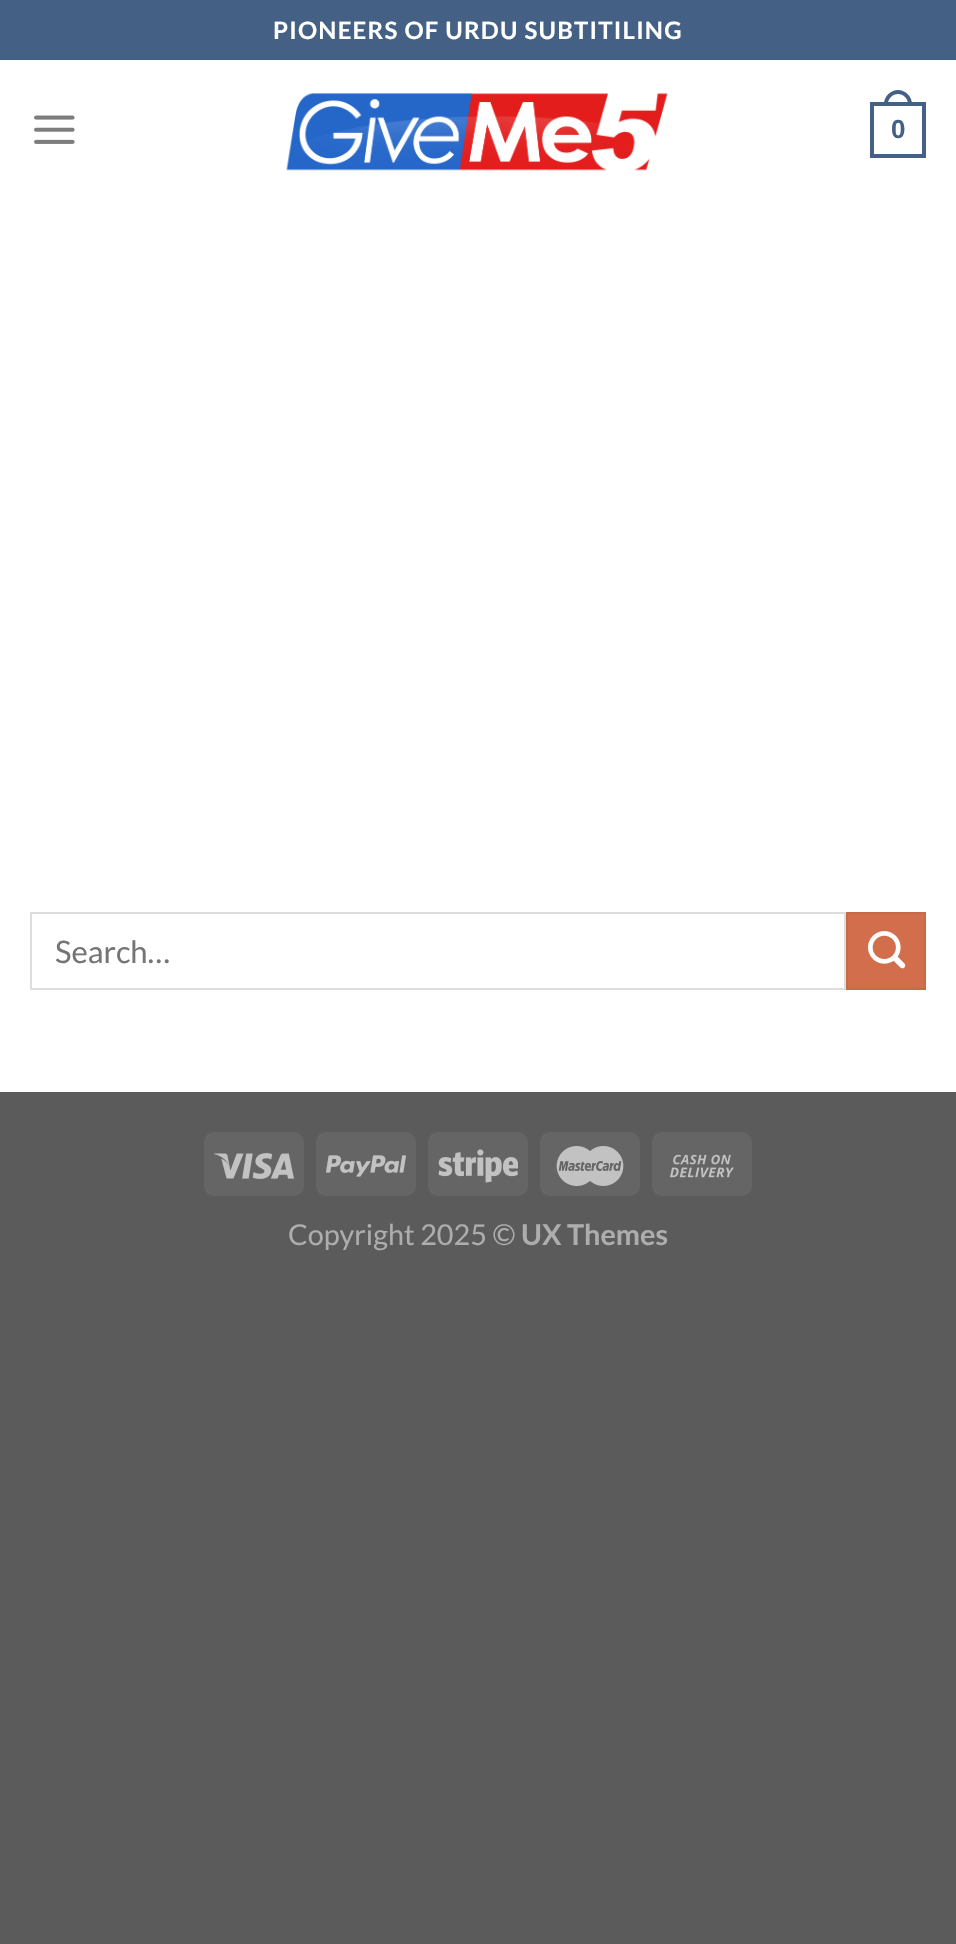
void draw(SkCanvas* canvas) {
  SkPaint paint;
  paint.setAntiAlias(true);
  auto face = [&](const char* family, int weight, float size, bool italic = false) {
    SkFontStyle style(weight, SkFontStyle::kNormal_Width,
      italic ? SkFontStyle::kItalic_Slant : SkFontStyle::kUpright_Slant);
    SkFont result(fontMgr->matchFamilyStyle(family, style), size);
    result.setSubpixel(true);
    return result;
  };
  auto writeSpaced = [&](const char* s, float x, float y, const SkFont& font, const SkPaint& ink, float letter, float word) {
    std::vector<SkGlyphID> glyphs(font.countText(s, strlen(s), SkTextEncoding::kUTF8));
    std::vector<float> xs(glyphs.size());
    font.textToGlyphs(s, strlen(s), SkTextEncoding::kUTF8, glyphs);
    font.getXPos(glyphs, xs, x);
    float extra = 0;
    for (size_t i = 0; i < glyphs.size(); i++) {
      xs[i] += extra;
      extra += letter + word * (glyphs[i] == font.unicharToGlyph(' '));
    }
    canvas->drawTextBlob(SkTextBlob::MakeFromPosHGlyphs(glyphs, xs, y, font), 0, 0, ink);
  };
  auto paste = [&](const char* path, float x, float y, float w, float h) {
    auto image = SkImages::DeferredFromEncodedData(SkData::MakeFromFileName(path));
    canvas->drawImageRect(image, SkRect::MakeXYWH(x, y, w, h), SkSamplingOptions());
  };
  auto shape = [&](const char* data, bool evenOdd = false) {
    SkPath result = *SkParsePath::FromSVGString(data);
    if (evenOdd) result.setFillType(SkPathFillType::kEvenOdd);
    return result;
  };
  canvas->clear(0xff5b5b5b);
  paint.setColor(0xffffffff);
  canvas->drawRect(SkRect::MakeXYWH(0, 60, 956, 1032), paint);
  paint.setColor(0xff446084);
  canvas->drawRect(SkRect::MakeXYWH(0, 0, 956, 60), paint);
  paste("img/1.png", 34, 115, 41, 29);
  paste("img/2.png", 286, 93, 382, 78);
  paint.setStroke(true);
  paint.setStrokeWidth(4);
  canvas->drawRect(SkRect::MakeXYWH(872, 104, 52, 52), paint);
  paint.setStroke(false);
  canvas->drawPath(shape("M898 90C905.5 90 912 96.5 912 104V106H884V104C884 96.5 890.5 90 898 90ZM898 94C903.5 94 908 98.5 908 104V106H888V104C888 98.5 892.5 94 898 94Z", true), paint);
  paint.setStroke(true);
  paint.setStrokeWidth(2);
  paint.setColor(0xffdddddd);
  canvas->drawRect(SkRect::MakeXYWH(31, 913, 814, 76), paint);
  paint.setStroke(false);
  paint.setColor(0xffd26e4b);
  canvas->drawRect(SkRect::MakeXYWH(847, 913, 78, 76), paint);
  paint.setStroke(true);
  paint.setColor(0xffc86947);
  canvas->drawRect(SkRect::MakeXYWH(847, 913, 78, 76), paint);
  paste("img/3.png", 868, 931, 38, 38);
  paint.setStroke(false);
  paint.setColor(0xff656565);
  canvas->drawRoundRect(SkRect::MakeXYWH(204, 1132, 100, 64), 10, 10, paint);
  paste("img/4.png", 214, 1153, 80, 26);
  canvas->drawRoundRect(SkRect::MakeXYWH(316, 1132, 100, 64), 10, 10, paint);
  paste("img/5.png", 326, 1155, 80, 22);
  canvas->drawRoundRect(SkRect::MakeXYWH(428, 1132, 100, 64), 10, 10, paint);
  paste("img/6.png", 438, 1149, 80, 34);
  canvas->drawRoundRect(SkRect::MakeXYWH(540, 1132, 100, 64), 10, 10, paint);
  paste("img/7.png", 556, 1146, 68, 40);
  canvas->drawRoundRect(SkRect::MakeXYWH(652, 1132, 100, 64), 10, 10, paint);
  paste("img/8.png", 670, 1154, 64, 24);
  auto f0 = face("Lato", 700, 24);
  paint.setColor(0xffffffff);
  writeSpaced("PIONEERS OF URDU SUBTITILING", 273, 39, f0, paint, 1.2f, 0);
  auto f1 = face("Liberation Sans", 700, 26);
  paint.setColor(0xff446084);
  canvas->drawString("0", 891, 138, f1, paint);
  auto f2 = face("Lato", 400, 31);
  paint.setColor(0xff757575);
  canvas->drawString("Search…", 55, 963, f2, paint);
  auto f3 = face("Lato", 400, 28.75f);
  paint.setColor(0xffadadad);
  canvas->drawString("Copyright 2025 ©", 288, 1245, f3, paint);
  auto f4 = face("Lato", 700, 28.75f);
  canvas->drawString("UX Themes", 521, 1245, f4, paint);
}
